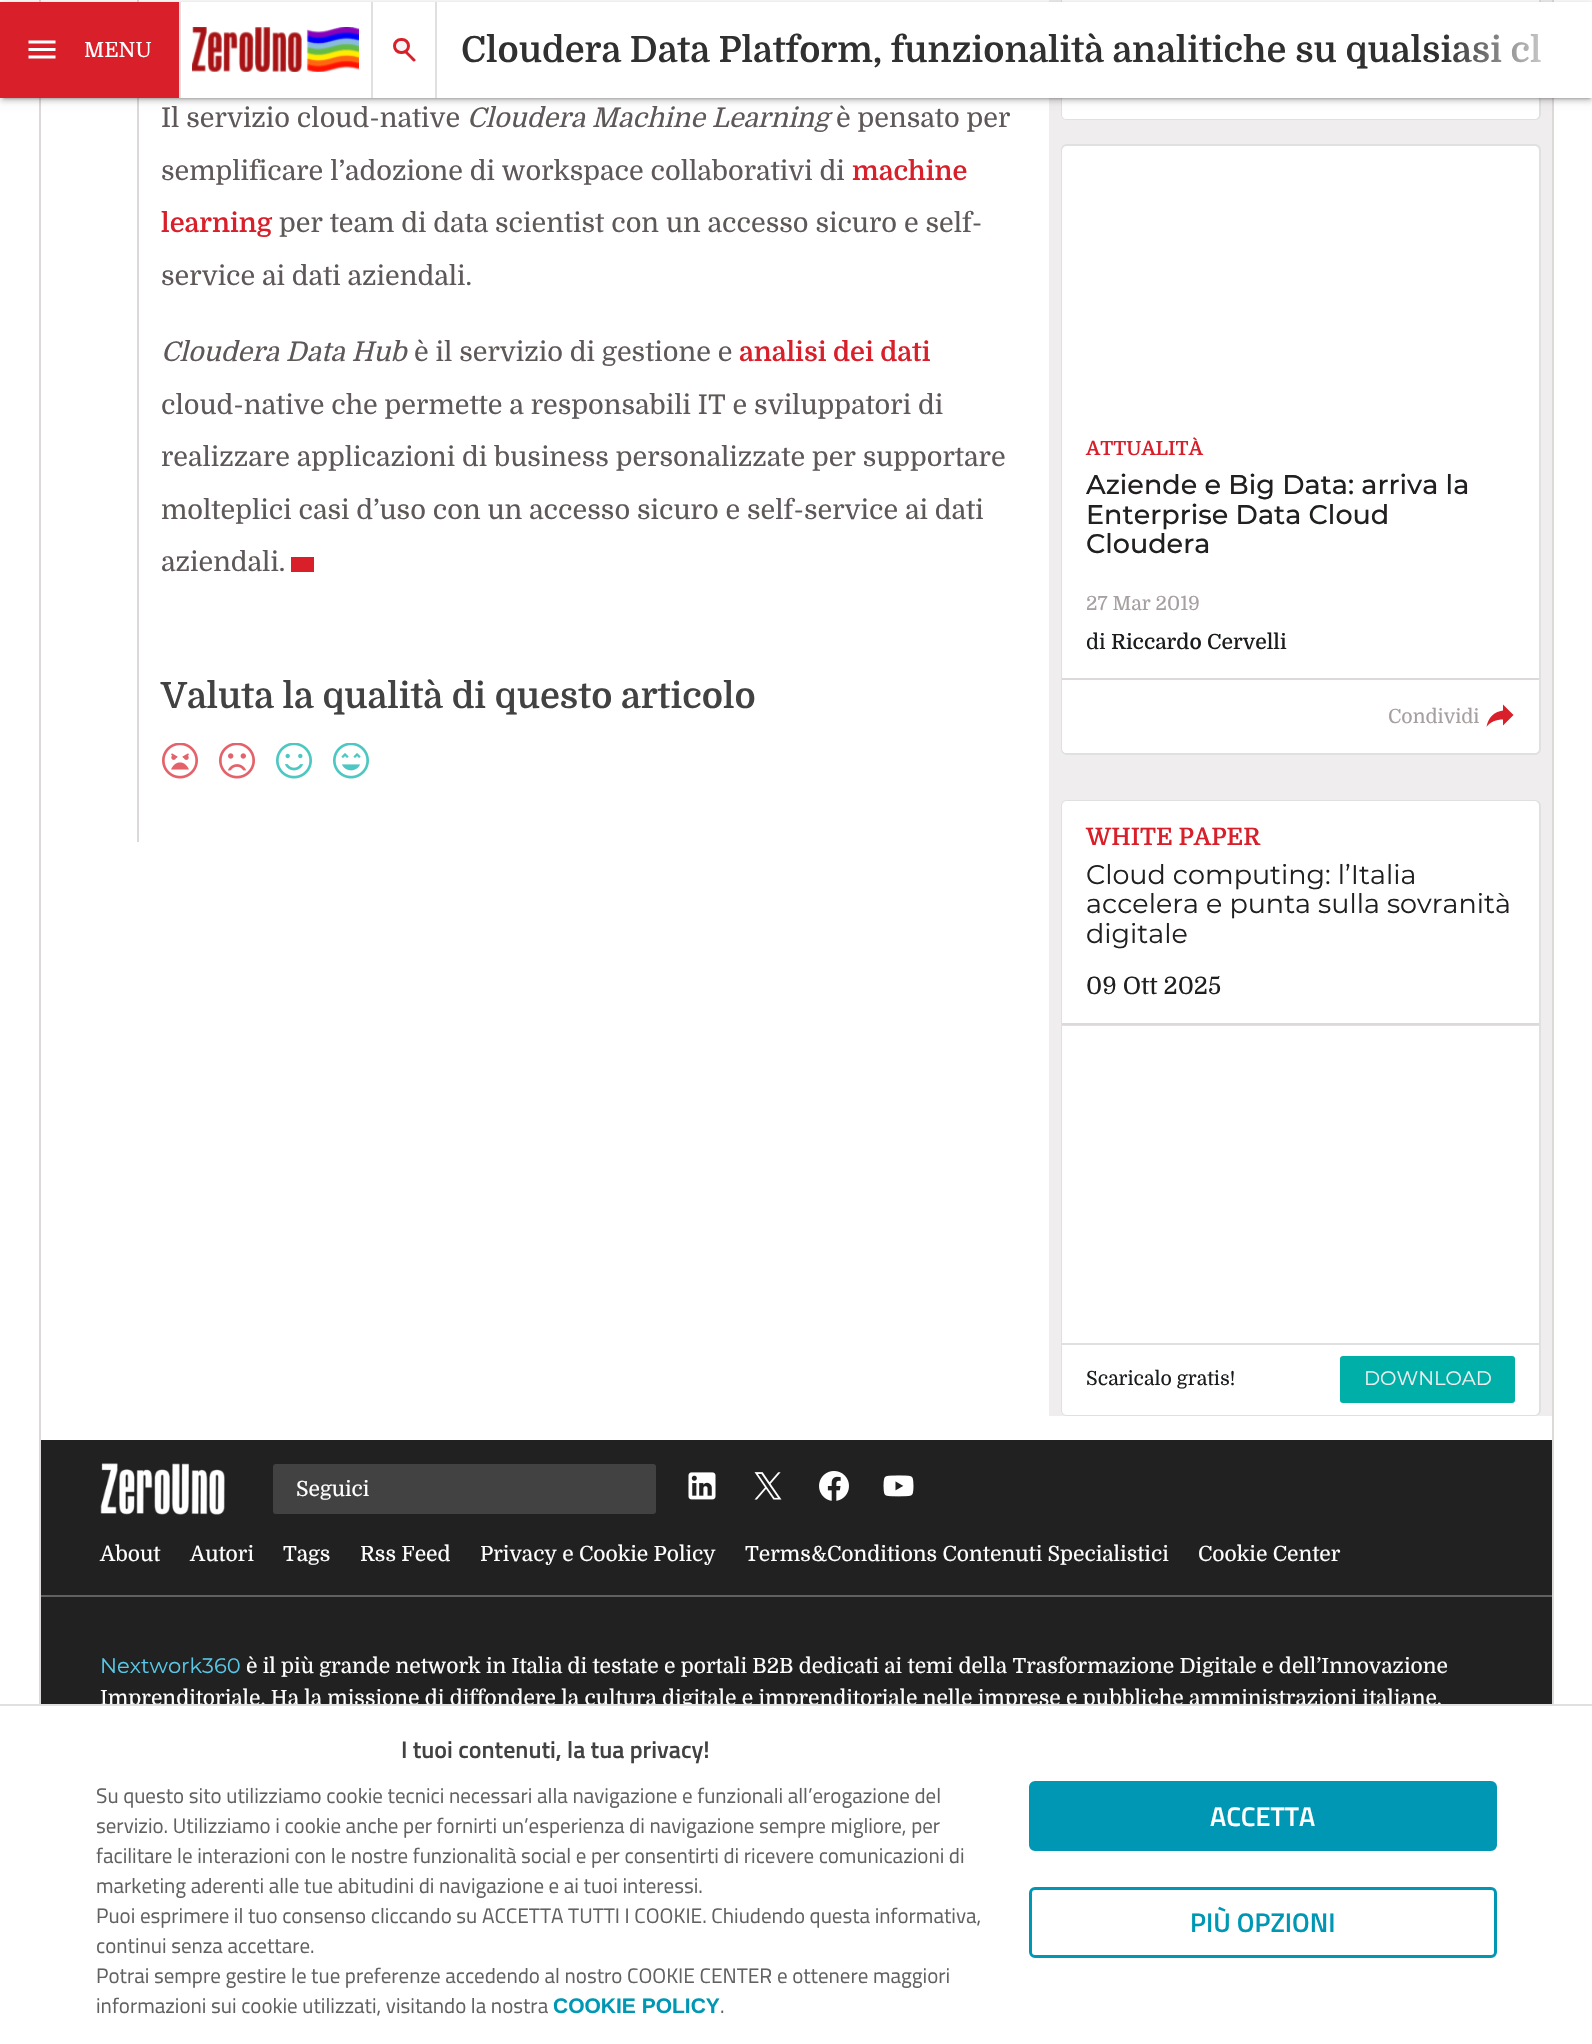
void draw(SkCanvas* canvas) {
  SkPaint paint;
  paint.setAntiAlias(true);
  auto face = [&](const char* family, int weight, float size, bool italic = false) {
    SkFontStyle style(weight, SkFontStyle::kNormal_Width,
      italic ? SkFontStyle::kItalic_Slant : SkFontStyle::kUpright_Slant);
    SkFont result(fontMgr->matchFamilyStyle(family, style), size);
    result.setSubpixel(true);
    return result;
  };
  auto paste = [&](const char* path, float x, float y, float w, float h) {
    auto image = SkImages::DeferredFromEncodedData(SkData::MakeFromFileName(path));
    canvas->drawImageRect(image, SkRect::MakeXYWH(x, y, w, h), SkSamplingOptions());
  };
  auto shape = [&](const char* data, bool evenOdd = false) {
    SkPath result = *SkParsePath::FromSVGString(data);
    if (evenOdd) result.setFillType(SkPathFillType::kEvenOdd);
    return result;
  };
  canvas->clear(0xffffffff);
  {
    const struct { float x, y, w, h; SkColor color; } items[] = {
      {137, 0, 2, 842, 0xffdcd9d8},
      {291, 557, 23, 15, 0xffd81f2a},
      {1049, 0, 503, 1416, 0xffefeded},
      {41, 1440, 1511, 155, 0xff212121},
    };
    for (auto [x, y, w, h, color] : items) {
      paint.setColor(color);
      canvas->drawRect(SkRect::MakeXYWH(x, y, w, h), paint);
    }
  }
  paste("img/7.png", 100, 1463, 125, 52);
  paint.setColor(0xff424242);
  canvas->drawRoundRect(SkRect::MakeXYWH(273, 1464, 383, 50), 3, 3, paint);
  paste("img/8.png", 688, 1472, 28, 28);
  paste("img/9.png", 754, 1472, 28, 28);
  paste("img/10.png", 819, 1471, 30, 30);
  paste("img/11.png", 883, 1475, 31, 22);
  paint.setColor(0xff212121);
  canvas->drawRect(SkRect::MakeXYWH(41, 1597, 1511, 107), paint);
  paint.setColor(0xff616161);
  canvas->drawRect(SkRect::MakeXYWH(41, 1595, 1512, 2), paint);
  paint.setStroke(true);
  paint.setStrokeWidth(2);
  paint.setColor(0xffdcd9d8);
  canvas->drawRect(SkRect::MakeXYWH(40, -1, 1513, 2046), paint);
  paint.setColor(0xffe0e0e0);
  canvas->drawRoundRect(SkRect::MakeXYWH(1062, -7, 478, 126), 5, 5, paint);
  paint.setStroke(false);
  paint.setColor(0xffffffff);
  canvas->drawPath(shape("M1062-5H1539V114C1539 117 1537 119 1534 119H1067C1064 119 1062 117 1062 114Z"), paint);
  canvas->drawPath(shape("M1062 44H1539V114C1539 117 1537 119 1534 119H1067C1064 119 1062 117 1062 114Z"), paint);
  paint.setColor(0x33000000);
  paint.setMaskFilter(SkMaskFilter::MakeBlur(kNormal_SkBlurStyle, 1));
  canvas->drawRect(SkRect::MakeXYWH(3, 9, 1587, 90), paint);
  paint.setMaskFilter(nullptr);
  paint.setColor(0x1f000000);
  paint.setMaskFilter(SkMaskFilter::MakeBlur(kNormal_SkBlurStyle, 4));
  canvas->drawRect(SkRect::MakeXYWH(0, 3, 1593, 96), paint);
  paint.setMaskFilter(nullptr);
  paint.setColor(0x24000000);
  paint.setMaskFilter(SkMaskFilter::MakeBlur(kNormal_SkBlurStyle, 3));
  canvas->drawRect(SkRect::MakeXYWH(0, 5, 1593, 96), paint);
  paint.setMaskFilter(nullptr);
  paint.setColor(0xffd81f2a);
  canvas->drawRect(SkRect::MakeXYWH(0, 2, 179, 96), paint);
  paint.setColor(0xffe0e0e0);
  canvas->drawRect(SkRect::MakeXYWH(179, 2, 2, 96), paint);
  paste("img/1.png", 28, 40, 28, 19);
  paint.setColor(0xffffffff);
  canvas->drawRect(SkRect::MakeXYWH(181, 2, 190, 96), paint);
  paste("img/2.png", 192, 27, 167, 45);
  {
    const struct { float x, y, w, h; SkColor color; } items[] = {
      {373, 2, 62, 96, 0xffffffff},
      {435, 2, 2, 96, 0xffe0e0e0},
      {371, 2, 2, 96, 0xffe0e0e0},
    };
    for (auto [x, y, w, h, color] : items) {
      paint.setColor(color);
      canvas->drawRect(SkRect::MakeXYWH(x, y, w, h), paint);
    }
  }
  paint.setColor(0xffd81f2a);
  canvas->drawPath(shape("M400 44L415.5 59.5C416 60.5 415 61.5 413.5 61.5C412.5 61 410.5 58.5 410.5 58.5L398 46C396.5 45 399 42.5 400 44Z"), paint);
  paint.setColor(0xfff5f5f5);
  canvas->drawRoundRect(SkRect::MakeXYWH(394.5f, 39.5f, 14, 13), 6.5f, 6.5f, paint);
  paint.setStroke(true);
  paint.setStrokeWidth(3);
  paint.setColor(0xffd81f2a);
  canvas->drawRoundRect(SkRect::MakeXYWH(394.5f, 39.5f, 14, 13), 6.5f, 6.5f, paint);
  paint.setStroke(false);
  paint.setColor(0xffffffff);
  canvas->drawRect(SkRect::MakeXYWH(437, 2, 1140, 96), paint);
  paste("img/3.png", 162, 743, 36, 36);
  paste("img/4.png", 219, 743, 36, 36);
  paste("img/5.png", 276, 743, 36, 36);
  paste("img/6.png", 333, 743, 36, 36);
  paint.setStroke(true);
  paint.setStrokeWidth(2);
  paint.setColor(0xffe0e0e0);
  canvas->drawRoundRect(SkRect::MakeXYWH(1062, 145, 478, 609), 5, 5, paint);
  paint.setStroke(false);
  paint.setColor(0xffffffff);
  canvas->drawPath(shape("M1067 146H1534C1537 146 1539 148 1539 151V414H1062V151C1062 148 1064 146 1067 146Z"), paint);
  canvas->drawPath(shape("M1062 414H1539V748C1539 751 1537 753 1534 753H1067C1064 753 1062 751 1062 748Z"), paint);
  canvas->drawPath(shape("M1062 678H1539V748C1539 751 1537 753 1534 753H1067C1064 753 1062 751 1062 748Z"), paint);
  paint.setColor(0xffdcd9d8);
  canvas->drawRect(SkRect::MakeXYWH(1062, 678, 477, 2), paint);
  paint.setColor(0xffd81f2a);
  canvas->drawPath(shape("M1513.5 715L1503 704.5V710.5C1494 711.5 1488 718 1486.5 727C1490.5 721.5 1496.5 719.5 1503 719.5V725.5Z"), paint);
  paint.setStroke(true);
  paint.setColor(0xffe0e0e0);
  canvas->drawRoundRect(SkRect::MakeXYWH(1062, 801, 478, 614), 5, 5, paint);
  paint.setStroke(false);
  canvas->drawRect(SkRect::MakeXYWH(1062, 1025, 477, 1), paint);
  paint.setColor(0xffffffff);
  canvas->drawPath(shape("M1067 801H1534C1537 801 1539 803 1539 806V1025H1062V806C1062 803 1064 801 1067 801Z"), paint);
  paint.setColor(0xffdcd9d8);
  canvas->drawRect(SkRect::MakeXYWH(1062, 1023, 477, 2), paint);
  paint.setColor(0xffffffff);
  canvas->drawRect(SkRect::MakeXYWH(1062, 1026, 477, 317), paint);
  canvas->drawPath(shape("M1062 1344H1539V1410C1539 1413 1537 1415 1534 1415H1067C1064 1415 1062 1413 1062 1410Z"), paint);
  paint.setColor(0xffe0e0e0);
  canvas->drawRect(SkRect::MakeXYWH(1062, 1343, 477, 2), paint);
  paint.setColor(0xff00afa8);
  canvas->drawRoundRect(SkRect::MakeXYWH(1340, 1356, 175, 47), 3, 3, paint);
  paint.setColor(0xffffffff);
  canvas->drawRect(SkRect::MakeXYWH(39, 1706, 1515, 338), paint);
  paint.setColor(0xff0097b5);
  canvas->drawRoundRect(SkRect::MakeXYWH(1030.5f, 1782.5f, 465, 67), 4.5f, 4.5f, paint);
  paint.setStroke(true);
  paint.setStrokeWidth(3);
  canvas->drawRoundRect(SkRect::MakeXYWH(1030.5f, 1782.5f, 465, 67), 4.5f, 4.5f, paint);
  canvas->drawRoundRect(SkRect::MakeXYWH(1030.5f, 1888.5f, 465, 68), 4.5f, 4.5f, paint);
  auto f0 = face("Domine", 400, 21);
  paint.setStroke(false);
  paint.setColor(0xffffffff);
  canvas->drawString("MENU", 84, 57, f0, paint);
  auto f1 = face("Domine", 600, 36);
  paint.setColor(0xff303030);
  canvas->drawString("Cloudera Data Platform, funzionalità analitiche su qualsiasi cl", 461, 62, f1, paint);
  {
    const SkColor colors[] = {0x00ffffff, 0xffffffff};
    const float stops[] = {0, 0.9f};
    const SkPoint ends[] = {{1443, 50}, {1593, 50}};
    paint.setShader(SkGradientShader::MakeLinear(ends, colors, stops, 2, SkTileMode::kClamp));
    paint.setAlpha(255);
  }
  canvas->drawRect(SkRect::MakeXYWH(1446, 2, 146, 96), paint);
  auto f2 = face("Domine", 400, 27);
  paint.setShader(nullptr);
  paint.setColor(0xff5f5858);
  canvas->drawString("Il servizio cloud-native", 161, 127, f2, paint);
  auto f3 = face("Domine", 400, 27, true);
  canvas->drawString("Cloudera Machine Learning", 467, 127, f3, paint);
  canvas->drawString("è pensato per", 836, 127, f2, paint);
  canvas->drawString("semplificare l’adozione di workspace collaborativi di", 161, 180, f2, paint);
  auto f4 = face("Domine", 600, 27);
  paint.setColor(0xffd81f2a);
  canvas->drawString("machine", 852, 180, f4, paint);
  canvas->drawString("learning", 161, 232, f4, paint);
  paint.setColor(0xff5f5858);
  canvas->drawString("per team di data scientist con un accesso sicuro e self-", 279, 232, f2, paint);
  canvas->drawString("service ai dati aziendali.", 161, 285, f2, paint);
  canvas->drawString("Cloudera Data Hub", 161, 361, f3, paint);
  canvas->drawString("è il servizio di gestione e", 414, 361, f2, paint);
  paint.setColor(0xffd81f2a);
  canvas->drawString("analisi dei dati", 739, 361, f4, paint);
  paint.setColor(0xff5f5858);
  {
    const struct { const char* s; float x, y; } items[] = {
      {"cloud-native che permette a responsabili IT e sviluppatori di", 161, 414},
      {"realizzare applicazioni di business personalizzate per supportare", 161, 466},
      {"molteplici casi d’uso con un accesso sicuro e self-service ai dati", 161, 519},
      {"aziendali.", 161, 571},
    };
    for (auto [s, x, y] : items) {
      canvas->drawString(s, x, y, f2, paint);
    }
  }
  paint.setColor(0xff424242);
  canvas->drawString("Valuta la qualità di questo articolo", 161, 708, f1, paint);
  auto f5 = face("Domine", 600, 19.5f);
  paint.setColor(0xffd81f2a);
  canvas->drawString("ATTUALITÀ", 1086, 455, f5, paint);
  auto f6 = face("Montserrat", 500, 27);
  paint.setColor(0xff221f1f);
  {
    const struct { const char* s; float x, y; } items[] = {
      {"Aziende e Big Data: arriva la", 1086, 494},
      {"Enterprise Data Cloud", 1086, 524},
      {"Cloudera", 1086, 553},
    };
    for (auto [s, x, y] : items) {
      canvas->drawString(s, x, y, f6, paint);
    }
  }
  auto f7 = face("Domine", 400, 19.5f);
  paint.setColor(0xffa7a0a0);
  canvas->drawString("27 Mar 2019", 1086, 610, f7, paint);
  paint.setColor(0xff1a1c1e);
  canvas->drawString("di", 1086, 649, f0, paint);
  auto f8 = face("Domine", 500, 21);
  canvas->drawString("Riccardo Cervelli", 1111, 649, f8, paint);
  paint.setColor(0xffa7a0a0);
  canvas->drawString("Condividi", 1388, 723, f7, paint);
  auto f9 = face("Domine", 600, 24);
  paint.setColor(0xffd81f2a);
  canvas->drawString("WHITE PAPER", 1086, 845, f9, paint);
  auto f10 = face("Montserrat", 400, 27);
  paint.setColor(0xff221f1f);
  {
    const struct { const char* s; float x, y; } items[] = {
      {"Cloud computing: l’Italia", 1086, 884},
      {"accelera e punta sulla sovranità", 1086, 913},
      {"digitale", 1086, 943},
    };
    for (auto [s, x, y] : items) {
      canvas->drawString(s, x, y, f10, paint);
    }
  }
  auto f11 = face("Domine", 400, 24);
  canvas->drawString("09 Ott 2025", 1086, 994, f11, paint);
  paint.setColor(0xff1a1c1e);
  canvas->drawString("Scaricalo gratis!", 1086, 1385, f7, paint);
  auto f12 = face("Montserrat", 400, 19.5f);
  paint.setColor(0xffefeded);
  canvas->drawString("DOWNLOAD", 1364, 1385, f12, paint);
  paint.setColor(0xffffffff);
  {
    const struct { const char* s; float x, y; } items[] = {
      {"Seguici", 296, 1496},
      {"About", 100, 1561},
      {"Autori", 190, 1561},
      {"Tags", 283, 1561},
      {"Rss Feed", 360, 1561},
      {"Privacy e Cookie Policy", 480, 1561},
      {"Terms&Conditions Contenuti Specialistici", 745, 1561},
      {"Cookie Center", 1198, 1561},
    };
    for (auto [s, x, y] : items) {
      canvas->drawString(s, x, y, f0, paint);
    }
  }
  auto f13 = face("Montserrat", 400, 21);
  paint.setColor(0xff57c8e7);
  canvas->drawString("Nextwork360", 100, 1673, f13, paint);
  paint.setColor(0xffffffff);
  canvas->drawString("è il più grande network in Italia di testate e portali B2B dedicati ai temi della Trasformazione Digitale e dell’Innovazione", 246, 1673, f0, paint);
  canvas->drawString("Imprenditoriale. Ha la missione di diffondere la cultura digitale e imprenditoriale nelle imprese e pubbliche amministrazioni italiane.", 100, 1705, f0, paint);
  paint.setColor(0xffe0e0e0);
  canvas->drawRect(SkRect::MakeXYWH(0, 1704, 1592, 2), paint);
  auto f14 = face("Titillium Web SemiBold", 600, 24);
  paint.setColor(0xff424242);
  canvas->drawString("I tuoi contenuti, la tua privacy!", 401, 1758, f14, paint);
  auto f15 = face("Titillium Web", 400, 21);
  paint.setColor(0xff616161);
  {
    const struct { const char* s; float x, y; } items[] = {
      {"Su questo sito utilizziamo cookie tecnici necessari alla navigazione e funzionali all’erogazione del", 96, 1803},
      {"servizio. Utilizziamo i cookie anche per fornirti un’esperienza di navigazione sempre migliore, per", 96, 1833},
      {"facilitare le interazioni con le nostre funzionalità social e per consentirti di ricevere comunicazioni di", 96, 1863},
      {"marketing aderenti alle tue abitudini di navigazione e ai tuoi interessi.", 96, 1893},
      {"Puoi esprimere il tuo consenso cliccando su ACCETTA TUTTI I COOKIE. Chiudendo questa informativa,", 96, 1923},
      {"continui senza accettare.", 96, 1953},
      {"Potrai sempre gestire le tue preferenze accedendo al nostro COOKIE CENTER e ottenere maggiori", 96, 1983},
      {"informazioni sui cookie utilizzati, visitando la nostra", 96, 2013},
    };
    for (auto [s, x, y] : items) {
      canvas->drawString(s, x, y, f15, paint);
    }
  }
  auto f16 = face("Liberation Sans", 700, 21);
  paint.setColor(0xff0097b5);
  canvas->drawString("COOKIE POLICY", 553, 2013, f16, paint);
  paint.setColor(0xff616161);
  canvas->drawString(".", 720, 2013, f15, paint);
  auto f17 = face("Titillium Web SemiBold", 600, 27);
  paint.setColor(0xffffffff);
  canvas->drawString("ACCETTA", 1210, 1826, f17, paint);
  paint.setColor(0xff0097b5);
  canvas->drawString("PIÙ OPZIONI", 1190, 1932, f17, paint);
}
